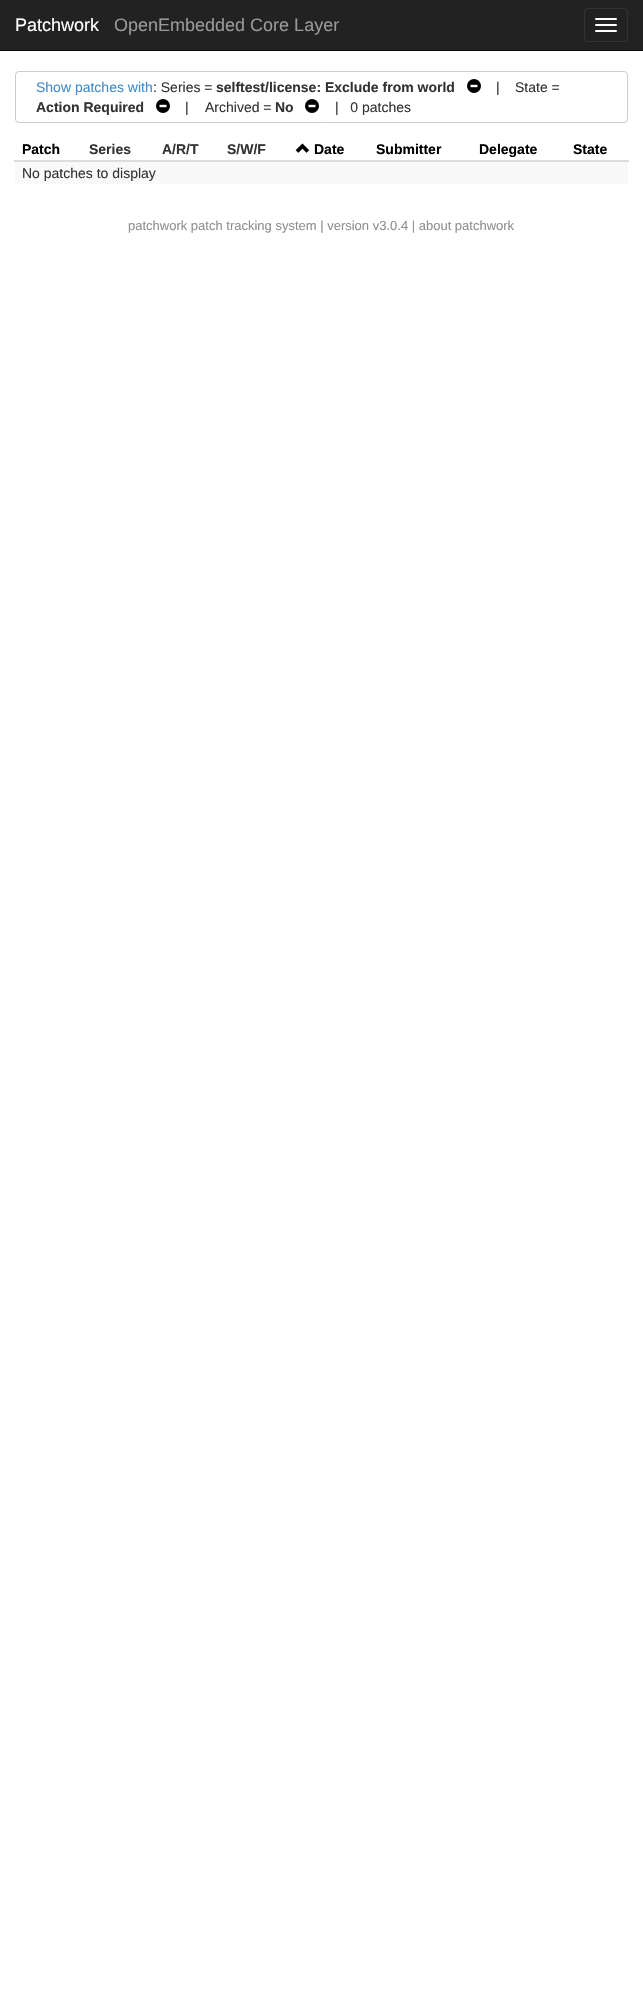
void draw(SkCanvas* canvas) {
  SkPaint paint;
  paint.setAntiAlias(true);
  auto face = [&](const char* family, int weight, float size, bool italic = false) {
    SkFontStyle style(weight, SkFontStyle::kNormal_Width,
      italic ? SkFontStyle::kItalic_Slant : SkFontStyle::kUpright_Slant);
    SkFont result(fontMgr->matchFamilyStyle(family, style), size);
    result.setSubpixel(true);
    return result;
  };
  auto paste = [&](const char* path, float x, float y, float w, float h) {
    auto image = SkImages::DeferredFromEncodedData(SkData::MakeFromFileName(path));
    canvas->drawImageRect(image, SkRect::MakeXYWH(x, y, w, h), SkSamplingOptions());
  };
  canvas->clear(0xffffffff);
  paint.setColor(0xff222222);
  canvas->drawRect(SkRect::MakeXYWH(0, 0, 643, 50), paint);
  paint.setColor(0xff080808);
  canvas->drawRect(SkRect::MakeXYWH(0, 50, 643, 1), paint);
  paint.setStroke(true);
  paint.setStrokeWidth(1);
  paint.setColor(0xff333333);
  canvas->drawRoundRect(SkRect::MakeXYWH(584.5f, 8.5f, 43, 33), 3.5f, 3.5f, paint);
  paint.setStroke(false);
  paint.setColor(0xffffffff);
  canvas->drawRoundRect(SkRect::MakeXYWH(595, 18, 22, 2), 1, 1, paint);
  canvas->drawRoundRect(SkRect::MakeXYWH(595, 24, 22, 2), 1, 1, paint);
  canvas->drawRoundRect(SkRect::MakeXYWH(595, 30, 22, 2), 1, 1, paint);
  paint.setStroke(true);
  paint.setColor(0xffcccccc);
  canvas->drawRoundRect(SkRect::MakeXYWH(15.5f, 71.5f, 612, 51), 3.5f, 3.5f, paint);
  paste("img/1.png", 467, 79, 14, 14);
  paste("img/1.png", 156, 99, 14, 14);
  paste("img/1.png", 305, 99, 14, 14);
  paste("img/2.png", 295, 143, 15, 10);
  paint.setStroke(false);
  paint.setColor(0xffdddddd);
  canvas->drawRect(SkRect::MakeXYWH(14, 160, 615, 2), paint);
  paint.setColor(0xfff9f9f9);
  canvas->drawRect(SkRect::MakeXYWH(15, 162, 613, 22), paint);
  auto f0 = face("Liberation Sans", 400, 18);
  paint.setColor(0xffffffff);
  canvas->drawString("Patchwork", 15, 31, f0, paint);
  paint.setColor(0xff999999);
  canvas->drawString("OpenEmbedded Core Layer", 114, 31, f0, paint);
  auto f1 = face("Liberation Sans", 400, 14);
  paint.setColor(0xff428bca);
  canvas->drawString("Show patches with", 36, 92, f1, paint);
  paint.setColor(0xff333333);
  canvas->drawString(": Series =", 153, 92, f1, paint);
  auto f2 = face("Liberation Sans", 700, 14);
  canvas->drawString("selftest/license: Exclude from world", 216, 92, f2, paint);
  canvas->drawString("|", 496, 92, f1, paint);
  canvas->drawString("State =", 515, 92, f1, paint);
  canvas->drawString("Action Required", 36, 112, f2, paint);
  canvas->drawString("|", 185, 112, f1, paint);
  canvas->drawString("Archived =", 205, 112, f1, paint);
  canvas->drawString("No", 275, 112, f2, paint);
  canvas->drawString("|   0 patches", 335, 112, f1, paint);
  paint.setColor(0xff000000);
  canvas->drawString("Patch", 22, 154, f2, paint);
  paint.setColor(0xff333333);
  {
    const struct { const char* s; float x, y; } items[] = {
      {"Series", 89, 154},
      {"A/R/T", 162, 154},
      {"S/W/F", 227, 154},
    };
    for (auto [s, x, y] : items) {
      canvas->drawString(s, x, y, f2, paint);
    }
  }
  paint.setColor(0xff000000);
  {
    const struct { const char* s; float x, y; } items[] = {
      {"Date", 314, 154},
      {"Submitter", 376, 154},
      {"Delegate", 479, 154},
      {"State", 573, 154},
    };
    for (auto [s, x, y] : items) {
      canvas->drawString(s, x, y, f2, paint);
    }
  }
  paint.setColor(0xff333333);
  canvas->drawString("No patches to display", 22, 178, f1, paint);
  auto f3 = face("Liberation Sans", 400, 13);
  paint.setColor(0xff909090);
  canvas->drawString("patchwork patch tracking system | version v3.0.4 | about patchwork", 128, 230, f3, paint);
}
